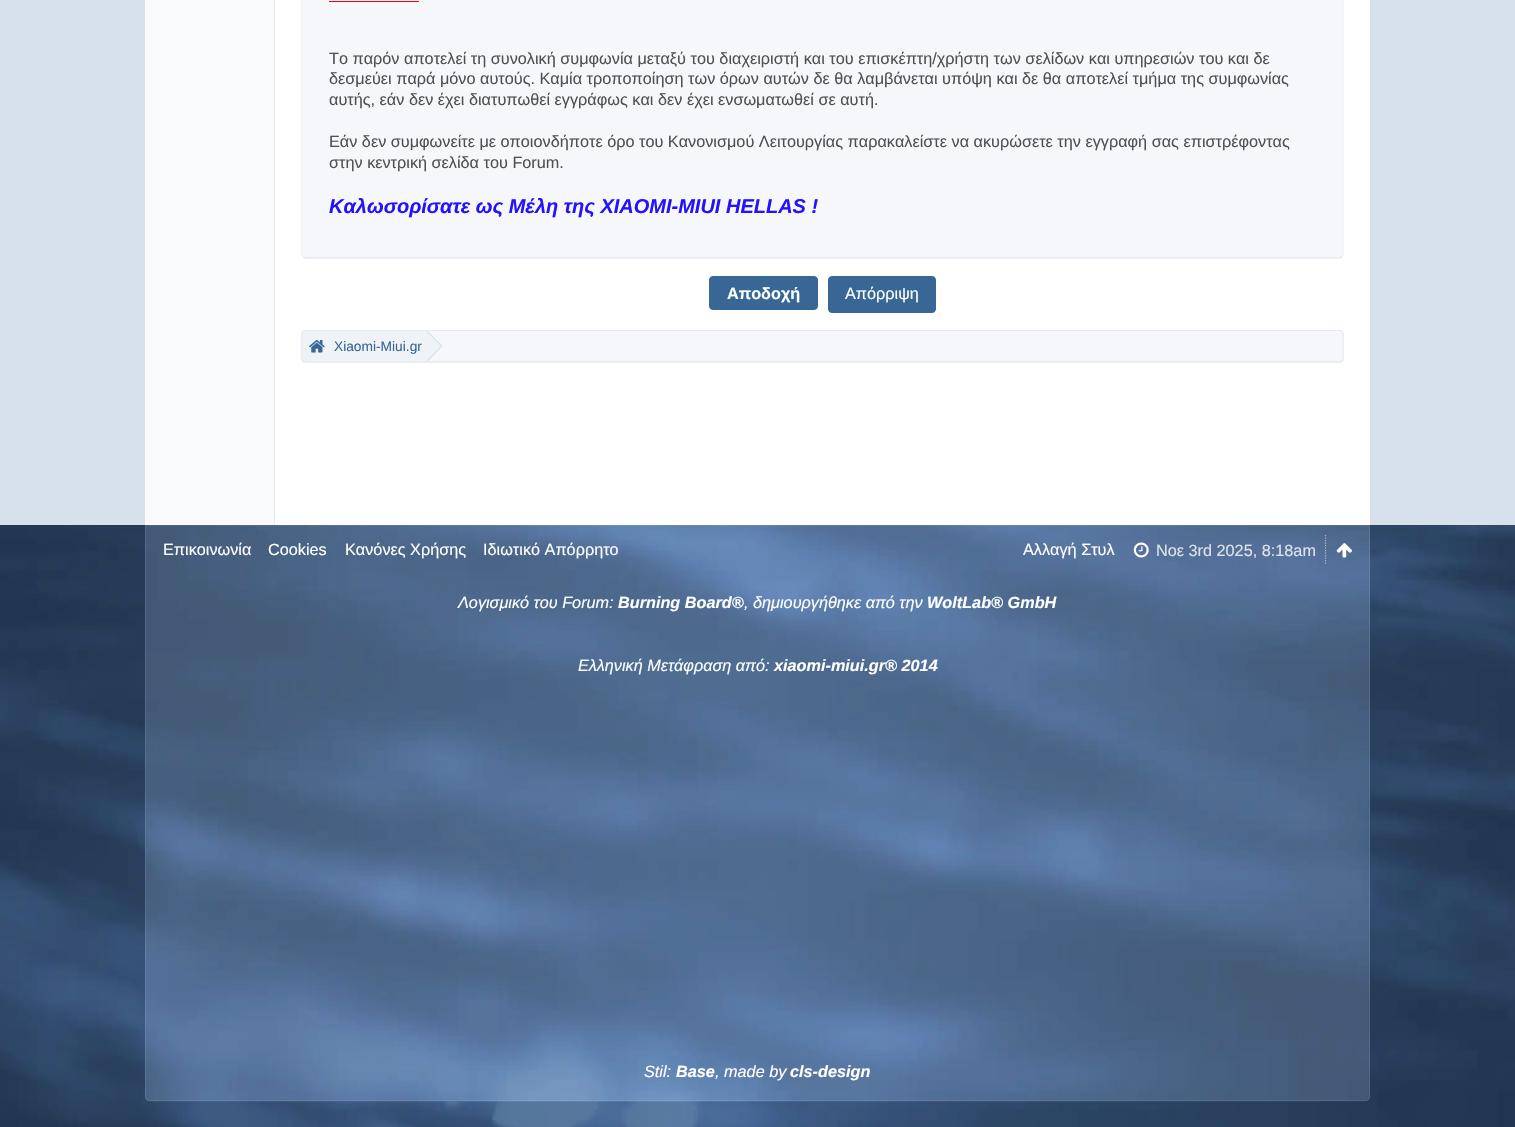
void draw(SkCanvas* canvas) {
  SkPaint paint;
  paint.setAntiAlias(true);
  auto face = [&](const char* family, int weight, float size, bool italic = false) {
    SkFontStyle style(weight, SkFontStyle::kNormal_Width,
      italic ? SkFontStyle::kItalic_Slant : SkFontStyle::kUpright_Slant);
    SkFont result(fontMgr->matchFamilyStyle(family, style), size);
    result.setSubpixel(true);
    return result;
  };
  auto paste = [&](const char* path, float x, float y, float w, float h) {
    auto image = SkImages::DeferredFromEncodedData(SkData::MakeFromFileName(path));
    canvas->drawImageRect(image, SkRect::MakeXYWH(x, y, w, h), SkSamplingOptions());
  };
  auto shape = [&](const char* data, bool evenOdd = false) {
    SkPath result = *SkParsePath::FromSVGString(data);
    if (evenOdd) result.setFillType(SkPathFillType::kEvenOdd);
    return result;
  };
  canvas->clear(0xffffffff);
  paste("img/1.png", 0, 525, 1515, 602);
  {
    const struct { float x, y, w, h; SkColor color; } items[] = {
      {0, 0, 1515, 525, 0xffd7e1eb},
      {275, 0, 1095, 525, 0xffffffff},
      {145, 0, 129, 525, 0xfff9fafc},
      {274, 0, 1, 525, 0xffe5ebf0},
    };
    for (auto [x, y, w, h, color] : items) {
      paint.setColor(color);
      canvas->drawRect(SkRect::MakeXYWH(x, y, w, h), paint);
    }
  }
  paint.setColor(0xfff5f7fa);
  canvas->drawRoundRect(SkRect::MakeXYWH(303, -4, 1040, 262), 4, 4, paint);
  paint.setStroke(true);
  paint.setStrokeWidth(1.2f);
  paint.setColor(0xffebf0f4);
  canvas->drawPath(shape("M1342-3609.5L1343-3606V254L1342 257"), paint);
  paint.setColor(0xffdbe4ea);
  canvas->drawPath(shape("M1342 257L1339 258H306L303 257"), paint);
  paint.setColor(0xffebf0f4);
  canvas->drawPath(shape("M303 257L302 254V-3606L303-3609.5"), paint);
  paint.setStroke(false);
  paint.setColor(0xffff0000);
  canvas->drawRect(SkRect::MakeXYWH(329, 1, 90, 1), paint);
  paint.setColor(0xff396795);
  canvas->drawRoundRect(SkRect::MakeXYWH(709.5f, 276.5f, 108, 33), 3.5f, 3.5f, paint);
  paint.setStroke(true);
  paint.setStrokeWidth(1);
  canvas->drawRoundRect(SkRect::MakeXYWH(709.5f, 276.5f, 108, 33), 3.5f, 3.5f, paint);
  paint.setStroke(false);
  canvas->drawRoundRect(SkRect::MakeXYWH(828.5f, 276.5f, 107, 36), 3.5f, 3.5f, paint);
  paint.setStroke(true);
  canvas->drawRoundRect(SkRect::MakeXYWH(828.5f, 276.5f, 107, 36), 3.5f, 3.5f, paint);
  paint.setStroke(false);
  paint.setColor(0xfff5f7fa);
  canvas->drawRoundRect(SkRect::MakeXYWH(301, 330, 1043, 33), 4, 4, paint);
  paint.setStroke(true);
  paint.setStrokeWidth(1.2f);
  paint.setColor(0xffdbe4ea);
  canvas->drawPath(shape("M1342 361L1340 362H305L303 361"), paint);
  paint.setColor(0xffe5ebf0);
  canvas->drawPath(shape("M303 361L302 359V334L303 331.5L305 330.5H1340L1342 331.5L1343 334V359L1342 361"), paint);
  paint.setStroke(false);
  paint.setColor(0xffeff3f7);
  canvas->drawPath(shape("M305.5 331H424V361H305.5C304 361 303 360 303 358.5V333.5C303 332 304 331 305.5 331Z"), paint);
  paste("img/2.png", 309, 340, 16, 13);
  paint.setColor(0xffd5dfe7);
  canvas->drawPath(shape("M427.5 331L442.5 346L428 361H424V331Z"), paint);
  paint.setColor(0xffeff3f7);
  canvas->drawPath(shape("M426 331L441 346L426.5 361H422.5V331Z"), paint);
  paste("img/3.png", 145, 525, 1225, 577);
  paint.setColor(0x1affffff);
  canvas->drawPath(shape("M145 525H1370V1097C1370 1099 1368 1101 1366 1101H149C147 1101 145 1099 145 1097Z"), paint);
  paint.setStroke(true);
  paint.setStrokeWidth(1);
  paint.setColor(0x17ffffff);
  canvas->drawPath(shape("M145.5 525.5H1369.5V1097C1369.5 1099 1368 1100.5 1366 1100.5H149C147 1100.5 145.5 1099 145.5 1097Z"), paint);
  paint.setStrokeWidth(1.2f);
  paint.setColor(0x80ffffff);
  paint.setPathEffect(SkDashPathEffect::Make({{1.25f, 1.25f}}, 0));
  canvas->drawPath(shape("M1325.5 535V564"), paint);
  paint.setPathEffect(nullptr);
  paste("img/4.png", 1133, 542, 16, 16);
  paste("img/5.png", 1336, 543, 16, 15);
  auto f0 = face("Liberation Sans", 400, 16.25f);
  paint.setStroke(false);
  paint.setColor(0xff505050);
  {
    const struct { const char* s; float x, y; } items[] = {
      {"Το παρόν αποτελεί τη συνολική συμφωνία μεταξύ του διαχειριστή και του επισκέπτη/χρήστη των σελίδων και υπηρεσιών του και δε", 329, 64},
      {"δεσμεύει παρά μόνο αυτούς. Καμία τροποποίηση των όρων αυτών δε θα λαμβάνεται υπόψη και δε θα αποτελεί τμήμα της συμφωνίας", 329, 84},
      {"αυτής, εάν δεν έχει διατυπωθεί εγγράφως και δεν έχει ενσωματωθεί σε αυτή.", 329, 105},
      {"Εάν δεν συμφωνείτε με οποιονδήποτε όρο του Κανονισμού Λειτουργίας παρακαλείστε να ακυρώσετε την εγγραφή σας επιστρέφοντας", 329, 147},
      {"στην κεντρική σελίδα του Forum.", 329, 168},
    };
    for (auto [s, x, y] : items) {
      canvas->drawString(s, x, y, f0, paint);
    }
  }
  auto f1 = face("Liberation Sans", 700, 20, true);
  paint.setColor(0xff2311ff);
  canvas->drawString("Καλωσορίσατε ως Μέλη της XIAOMI-MIUI HELLAS !", 329, 213, f1, paint);
  auto f2 = face("Liberation Sans", 700, 16.25f);
  paint.setColor(0xffffffff);
  canvas->drawString("Αποδοχή", 727, 299, f2, paint);
  canvas->drawString("Απόρριψη", 845, 299, f0, paint);
  auto f3 = face("Liberation Sans", 400, 13.75f);
  paint.setColor(0xff396795);
  canvas->drawString("Xiaomi-Miui.gr", 334, 351, f3, paint);
  paint.setColor(0xffffffff);
  {
    const struct { const char* s; float x, y; } items[] = {
      {"Επικοινωνία", 163, 555},
      {"Cookies", 268, 555},
      {"Κανόνες Χρήσης", 345, 555},
      {"Ιδιωτικό Απόρρητο", 483, 555},
      {"Αλλαγή Στυλ", 1023, 555},
    };
    for (auto [s, x, y] : items) {
      canvas->drawString(s, x, y, f0, paint);
    }
  }
  paint.setColor(0xffdde2eb);
  canvas->drawString("Νοε 3rd 2025, 8:18am", 1156, 556, f0, paint);
  auto f4 = face("Liberation Sans", 400, 16.25f, true);
  paint.setColor(0xffffffff);
  canvas->drawString("Λογισμικό του Forum:", 458, 608, f4, paint);
  auto f5 = face("Liberation Sans", 700, 16.25f, true);
  canvas->drawString("Burning Board®", 618, 608, f5, paint);
  canvas->drawString(", δημιουργήθηκε από την", 744, 608, f4, paint);
  canvas->drawString("WoltLab® GmbH", 927, 608, f5, paint);
  canvas->drawString("Ελληνική Μετάφραση από:", 578, 671, f4, paint);
  canvas->drawString("xiaomi-miui.gr® 2014", 774, 671, f5, paint);
  canvas->drawString("Stil:", 644, 1077, f4, paint);
  canvas->drawString("Base", 676, 1077, f5, paint);
  canvas->drawString(", made by", 715, 1077, f4, paint);
  canvas->drawString("cls-design", 790, 1077, f5, paint);
}
